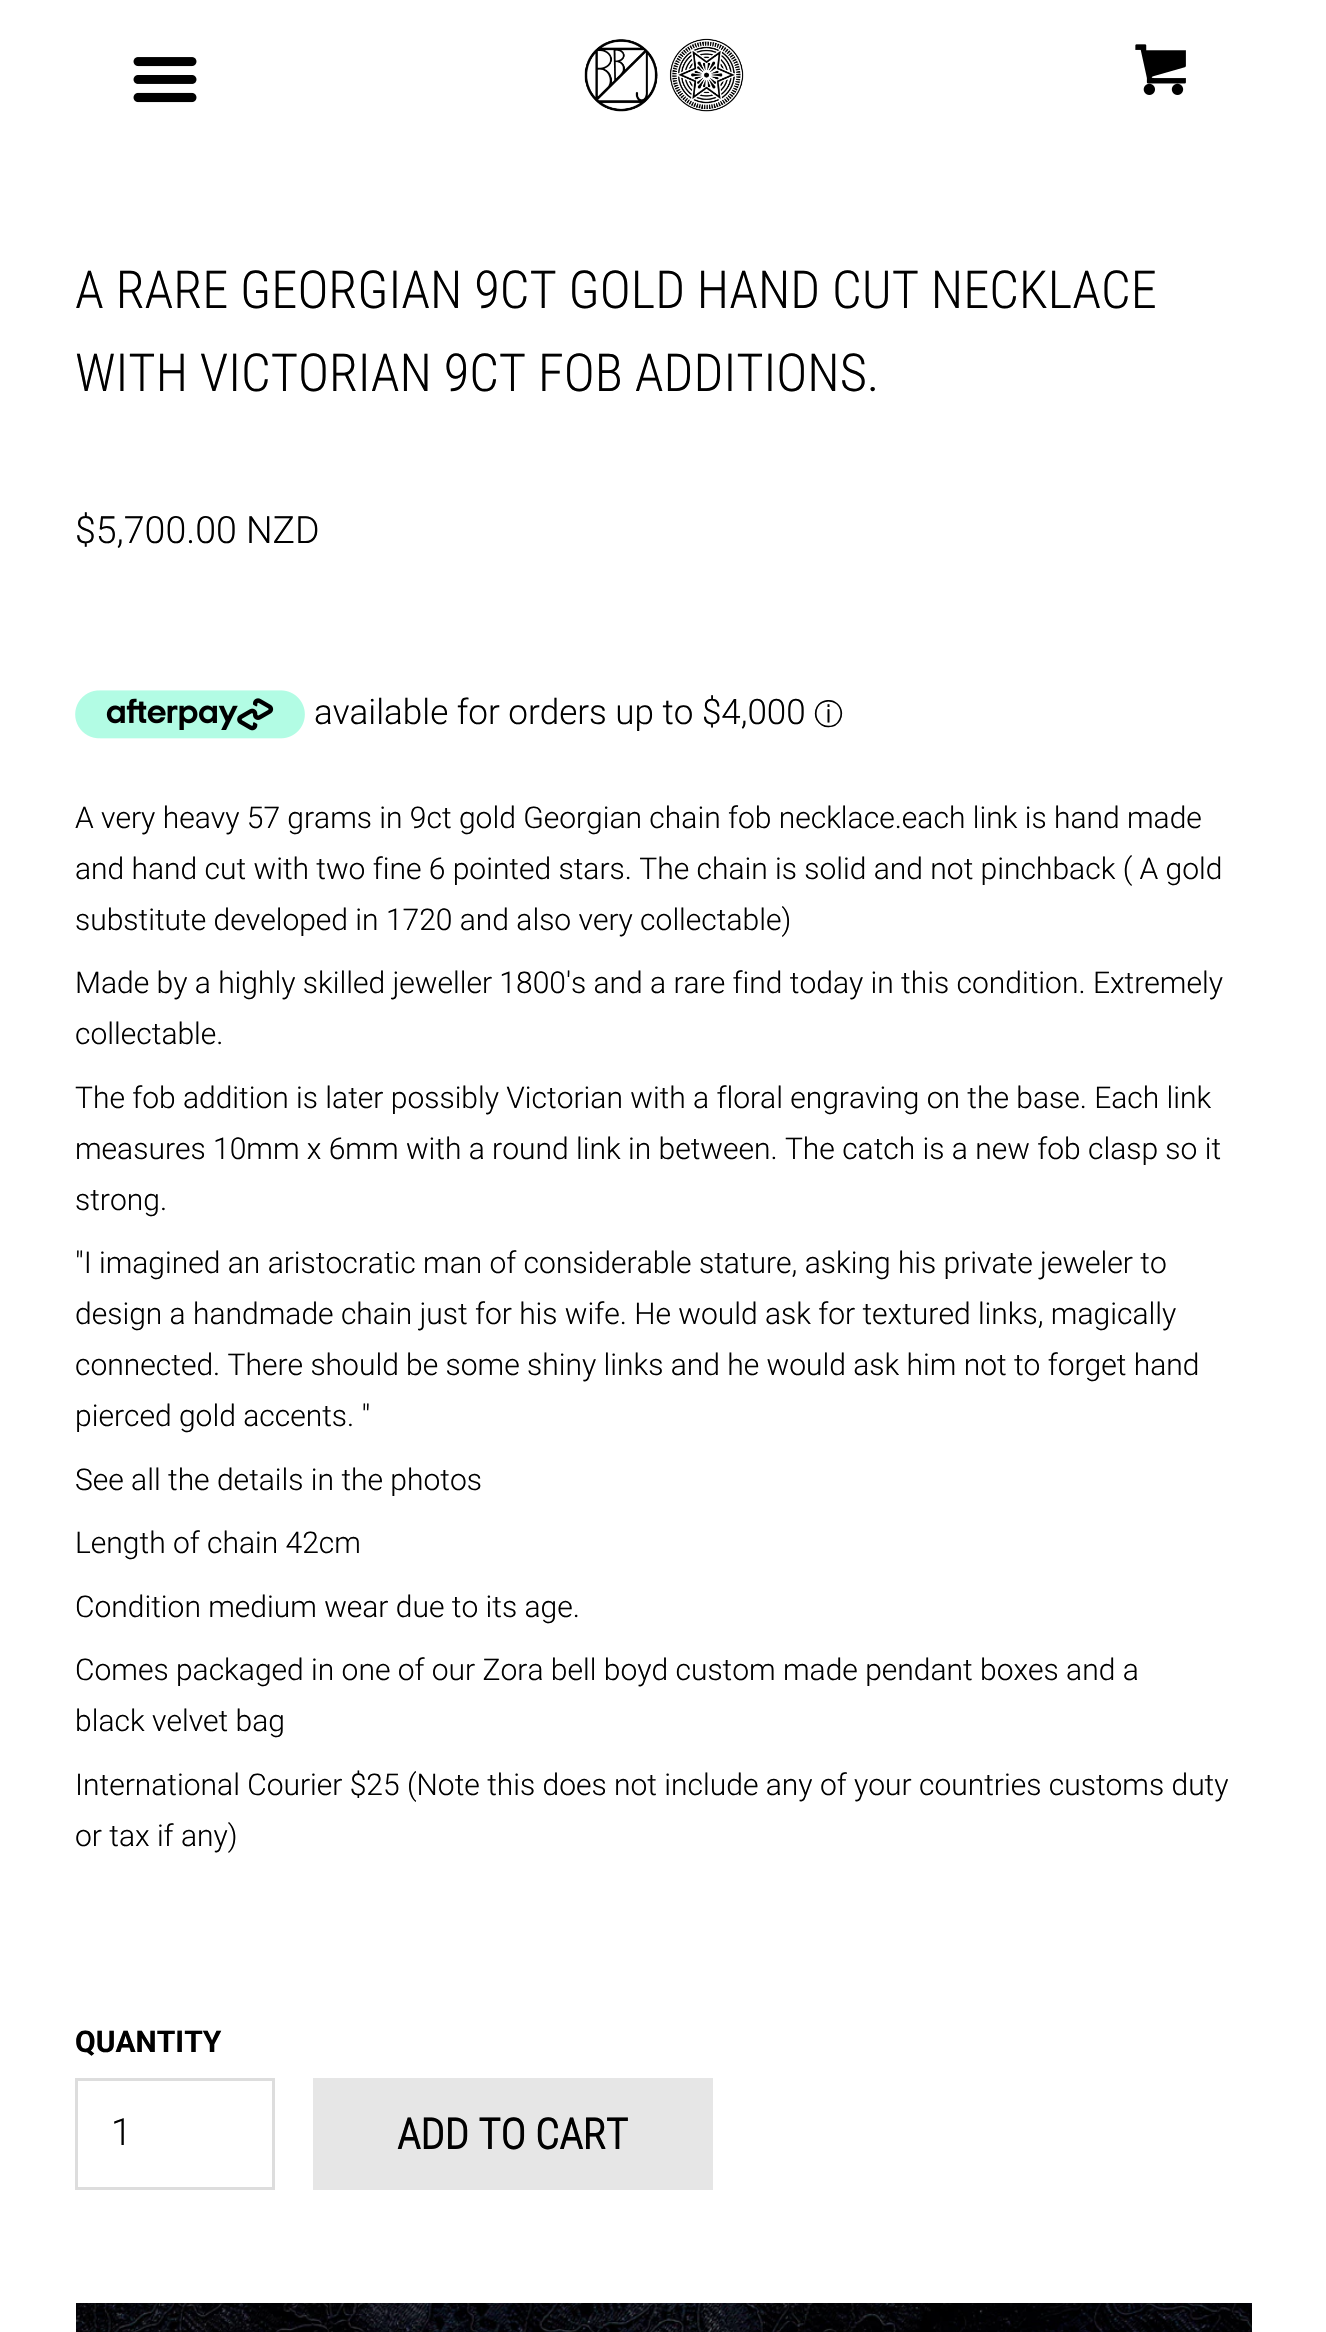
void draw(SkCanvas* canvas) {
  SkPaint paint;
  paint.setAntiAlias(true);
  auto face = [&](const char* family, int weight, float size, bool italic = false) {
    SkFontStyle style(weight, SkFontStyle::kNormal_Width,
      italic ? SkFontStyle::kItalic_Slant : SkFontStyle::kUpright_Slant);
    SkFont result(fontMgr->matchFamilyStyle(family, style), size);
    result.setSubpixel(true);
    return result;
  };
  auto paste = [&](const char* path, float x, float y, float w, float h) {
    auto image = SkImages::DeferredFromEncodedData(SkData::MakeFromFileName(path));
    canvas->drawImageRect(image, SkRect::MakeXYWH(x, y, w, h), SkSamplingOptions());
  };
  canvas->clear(0xffffffff);
  paste("img/1.png", 133, 57, 64, 46);
  paste("img/2.png", 584, 38, 160, 74);
  paste("img/3.png", 1135, 44, 51, 51);
  paste("img/4.png", 75, 690, 230, 49);
  paint.setStroke(true);
  paint.setStrokeWidth(3);
  paint.setColor(0xffdddddd);
  canvas->drawRect(SkRect::MakeXYWH(76.5f, 2079.5f, 197, 109), paint);
  paint.setStroke(false);
  paint.setColor(0xffe6e6e6);
  canvas->drawRect(SkRect::MakeXYWH(313, 2078, 400, 112), paint);
  paste("img/5.png", 76, 2303, 1176, 29);
  auto f0 = face("Roboto Condensed", 300, 52.5f);
  paint.setColor(0xff000000);
  canvas->drawString("A RARE GEORGIAN 9CT GOLD HAND CUT NECKLACE", 75, 308, f0, paint);
  canvas->drawString("WITH VICTORIAN 9CT FOB ADDITIONS.", 75, 391, f0, paint);
  auto f1 = face("Roboto", 300, 37.5f);
  canvas->drawString("$5,700.00 NZD", 75, 543, f1, paint);
  auto f2 = face("Roboto", 300, 35);
  canvas->drawString("available for orders up to $4,000", 314, 724, f2, paint);
  auto f3 = face("WenQuanYi Zen Hei", 500, 29);
  canvas->drawString("ⓘ", 814, 724, f3, paint);
  auto f4 = face("Roboto", 300, 30);
  {
    const struct { const char* s; float x, y; } items[] = {
      {"A very heavy 57 grams in 9ct gold Georgian chain fob necklace.each link is hand made", 75, 828},
      {"and hand cut with two fine 6 pointed stars. The chain is solid and not pinchback ( A gold", 75, 879},
      {"substitute developed in 1720 and also very collectable)", 75, 930},
      {"Made by a highly skilled jeweller 1800's and a rare find today in this condition. Extremely", 75, 993},
      {"collectable.", 75, 1044},
      {"The fob addition is later possibly Victorian with a floral engraving on the base. Each link", 75, 1108},
      {"measures 10mm x 6mm with a round link in between. The catch is a new fob clasp so it", 75, 1159},
      {"strong.", 75, 1210},
      {"\"I imagined an aristocratic man of considerable stature, asking his private jeweler to", 75, 1273},
      {"design a handmade chain just for his wife. He would ask for textured links, magically", 75, 1324},
      {"connected. There should be some shiny links and he would ask him not to forget hand", 75, 1375},
      {"pierced gold accents. \"", 75, 1426},
      {"See all the details in the photos", 75, 1490},
      {"Length of chain 42cm", 75, 1553},
      {"Condition medium wear due to its age.", 75, 1617},
      {"Comes packaged in one of our Zora bell boyd custom made pendant boxes and a", 75, 1680},
      {"black velvet bag", 75, 1731},
      {"International Courier $25 (Note this does not include any of your countries customs duty", 75, 1795},
      {"or tax if any)", 75, 1846},
    };
    for (auto [s, x, y] : items) {
      canvas->drawString(s, x, y, f4, paint);
    }
  }
  auto f5 = face("Roboto", 700, 30);
  canvas->drawString("QUANTITY", 75, 2052, f5, paint);
  canvas->drawString("1", 111, 2145, f1, paint);
  auto f6 = face("Roboto Condensed", 700, 42.5f);
  canvas->drawString("ADD TO CART", 397, 2149, f6, paint);
}
